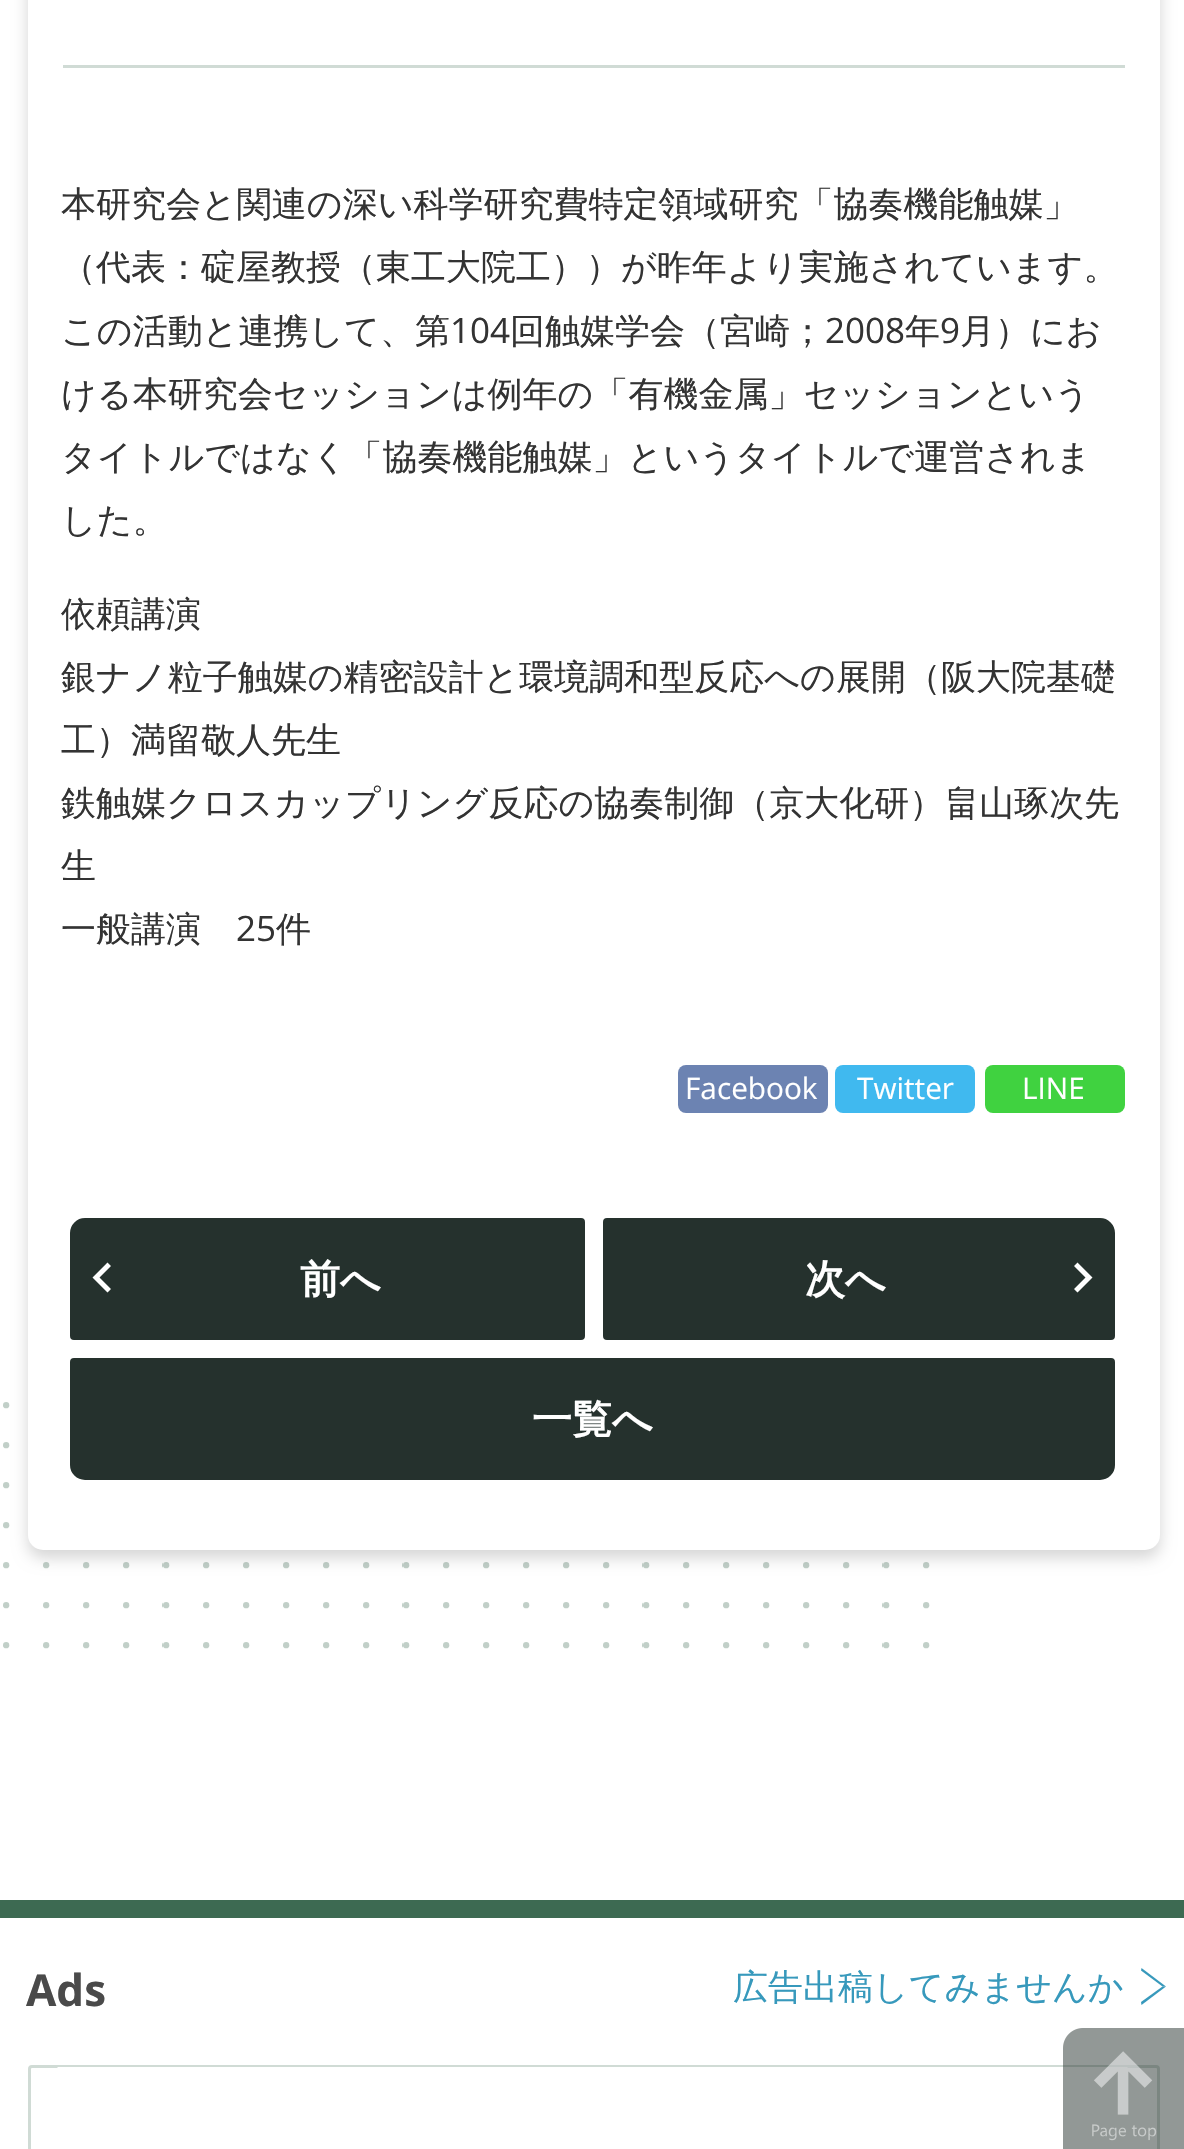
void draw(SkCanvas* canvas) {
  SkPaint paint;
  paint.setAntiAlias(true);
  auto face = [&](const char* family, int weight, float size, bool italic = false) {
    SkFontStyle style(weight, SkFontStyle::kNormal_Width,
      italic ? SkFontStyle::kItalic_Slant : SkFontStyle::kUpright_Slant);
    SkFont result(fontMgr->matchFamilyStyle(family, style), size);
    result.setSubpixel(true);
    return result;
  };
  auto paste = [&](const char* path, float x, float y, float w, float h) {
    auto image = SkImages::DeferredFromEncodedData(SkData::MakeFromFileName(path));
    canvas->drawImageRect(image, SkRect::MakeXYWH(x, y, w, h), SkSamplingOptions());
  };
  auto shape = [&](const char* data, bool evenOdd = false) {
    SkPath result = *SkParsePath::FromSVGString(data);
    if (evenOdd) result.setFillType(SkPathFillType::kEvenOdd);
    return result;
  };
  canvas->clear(0xffffffff);
  paste("img/1.png", 3, 1402, 927, 247);
  paint.setColor(0x29000000);
  paint.setMaskFilter(SkMaskFilter::MakeBlur(kNormal_SkBlurStyle, 7.5f));
  canvas->drawRoundRect(SkRect::MakeXYWH(28, -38, 1132, 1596), 15, 15, paint);
  paint.setMaskFilter(nullptr);
  paint.setColor(0xffffffff);
  canvas->drawRoundRect(SkRect::MakeXYWH(28, -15, 1132, 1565), 15, 15, paint);
  paint.setColor(0xffd0dbd5);
  canvas->drawRect(SkRect::MakeXYWH(63, 65, 1062, 3), paint);
  paint.setColor(0xff6c83b2);
  canvas->drawRoundRect(SkRect::MakeXYWH(678, 1065, 150, 48), 8, 8, paint);
  paint.setColor(0xff40b9ef);
  canvas->drawRoundRect(SkRect::MakeXYWH(835, 1065, 140, 48), 8, 8, paint);
  paint.setColor(0xff40d240);
  canvas->drawRoundRect(SkRect::MakeXYWH(985, 1065, 140, 48), 8, 8, paint);
  paint.setColor(0xff25312d);
  canvas->drawPath(shape("M85 1219.5H581C582.5 1219.5 583.5 1220.5 583.5 1222V1336C583.5 1337.5 582.5 1338.5 581 1338.5H74C72.5 1338.5 71.5 1337.5 71.5 1336V1233C71.5 1225.5 77.5 1219.5 85 1219.5Z"), paint);
  paint.setStroke(true);
  paint.setStrokeWidth(3);
  canvas->drawPath(shape("M85 1219.5H581C582.5 1219.5 583.5 1220.5 583.5 1222V1336C583.5 1337.5 582.5 1338.5 581 1338.5H74C72.5 1338.5 71.5 1337.5 71.5 1336V1233C71.5 1225.5 77.5 1219.5 85 1219.5Z"), paint);
  paint.setStroke(false);
  paint.setColor(0xffffffff);
  canvas->drawPath(shape("M111 1266L99.5 1277.5L111 1289L107.5 1292.5L92.5 1277.5L107.5 1262.5Z"), paint);
  paint.setColor(0xff25312d);
  canvas->drawPath(shape("M607 1219.5H1100C1107.5 1219.5 1113.5 1225.5 1113.5 1233V1336C1113.5 1337.5 1112.5 1338.5 1111 1338.5H607C605.5 1338.5 604.5 1337.5 604.5 1336V1222C604.5 1220.5 605.5 1219.5 607 1219.5Z"), paint);
  paint.setStroke(true);
  canvas->drawPath(shape("M607 1219.5H1100C1107.5 1219.5 1113.5 1225.5 1113.5 1233V1336C1113.5 1337.5 1112.5 1338.5 1111 1338.5H607C605.5 1338.5 604.5 1337.5 604.5 1336V1222C604.5 1220.5 605.5 1219.5 607 1219.5Z"), paint);
  paint.setStroke(false);
  paint.setColor(0xffffffff);
  canvas->drawPath(shape("M1077.5 1262.5L1092.5 1277.5L1077.5 1292.5L1074 1289L1085.5 1277.5L1074 1266Z"), paint);
  paint.setColor(0xff25312d);
  canvas->drawPath(shape("M74 1359.5H1111C1112.5 1359.5 1113.5 1360.5 1113.5 1362V1465C1113.5 1472.5 1107.5 1478.5 1100 1478.5H85C77.5 1478.5 71.5 1472.5 71.5 1465V1362C71.5 1360.5 72.5 1359.5 74 1359.5Z"), paint);
  paint.setStroke(true);
  canvas->drawPath(shape("M74 1359.5H1111C1112.5 1359.5 1113.5 1360.5 1113.5 1362V1465C1113.5 1472.5 1107.5 1478.5 1100 1478.5H85C77.5 1478.5 71.5 1472.5 71.5 1465V1362C71.5 1360.5 72.5 1359.5 74 1359.5Z"), paint);
  paint.setStroke(false);
  paint.setColor(0xff3d6a52);
  canvas->drawRect(SkRect::MakeXYWH(0, 1900, 1184, 18), paint);
  paint.setColor(0xff3799bc);
  canvas->drawPath(shape("M1141.5 1968L1166 1986.5H1162.5L1141 1970.5Z"), paint);
  canvas->drawPath(shape("M1166 1986.5L1141.5 2005L1141 2002L1162.5 1986.5Z"), paint);
  paint.setStroke(true);
  paint.setColor(0xffd0dbd5);
  canvas->drawRoundRect(SkRect::MakeXYWH(29.5f, 2066.5f, 1129, 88), 2.5f, 2.5f, paint);
  paste("img/2.png", 57, 2067, 1071, 1);
  paste("img/3.png", 1063, 2028, 121, 121);
  auto f0 = face("WenQuanYi Zen Hei", 500, 35);
  paint.setStroke(false);
  paint.setColor(0xff333333);
  {
    const struct { const char* s; float x, y; } items[] = {
      {"本研究会と関連の深い科学研究費特定領域研究「協奏機能触媒」", 61, 216},
      {"（代表：碇屋教授（東工大院工））が昨年より実施されています。", 61, 279},
      {"この活動と連携して、第", 61, 343},
    };
    for (auto [s, x, y] : items) {
      canvas->drawString(s, x, y, f0, paint);
    }
  }
  auto f1 = face("Open Sans", 400, 35);
  canvas->drawString("104", 450, 343, f1, paint);
  canvas->drawString("回触媒学会（宮崎；", 510, 343, f0, paint);
  canvas->drawString("2008", 825, 343, f1, paint);
  canvas->drawString("年", 905, 343, f0, paint);
  canvas->drawString("9", 940, 343, f1, paint);
  {
    const struct { const char* s; float x, y; } items[] = {
      {"月）にお", 960, 343},
      {"ける本研究会セッションは例年の「有機金属」セッションという", 61, 406},
      {"タイトルではなく「協奏機能触媒」というタイトルで運営されま", 61, 469},
      {"した。", 61, 532},
      {"依頼講演", 61, 626},
      {"銀ナノ粒子触媒の精密設計と環境調和型反応への展開（阪大院基礎", 61, 689},
      {"工）満留敬人先生", 61, 752},
      {"鉄触媒クロスカップリング反応の協奏制御（京大化研）畠山琢次先", 61, 815},
      {"生", 61, 878},
      {"一般講演", 61, 941},
    };
    for (auto [s, x, y] : items) {
      canvas->drawString(s, x, y, f0, paint);
    }
  }
  canvas->drawString("25", 236, 941, f1, paint);
  canvas->drawString("件", 276, 941, f0, paint);
  auto f2 = face("Open Sans", 400, 29.75f);
  paint.setColor(0xffffffff);
  {
    const struct { const char* s; float x, y; } items[] = {
      {"Facebook", 685, 1099},
      {"Twitter", 857, 1099},
      {"LINE", 1022, 1099},
    };
    for (auto [s, x, y] : items) {
      canvas->drawString(s, x, y, f2, paint);
    }
  }
  auto f3 = face("WenQuanYi Zen Hei", 700, 40);
  {
    const struct { const char* s; float x, y; } items[] = {
      {"前へ", 300, 1293},
      {"次へ", 805, 1293},
      {"一覧へ", 532, 1433},
    };
    for (auto [s, x, y] : items) {
      canvas->drawString(s, x, y, f3, paint);
    }
  }
  auto f4 = face("Open Sans", 700, 44);
  paint.setColor(0xff4a4a4a);
  canvas->drawString("Ads", 26, 2006, f4, paint);
  paint.setColor(0xff3799bc);
  canvas->drawString("広告出稿してみませんか", 733, 1999, f0, paint);
}
